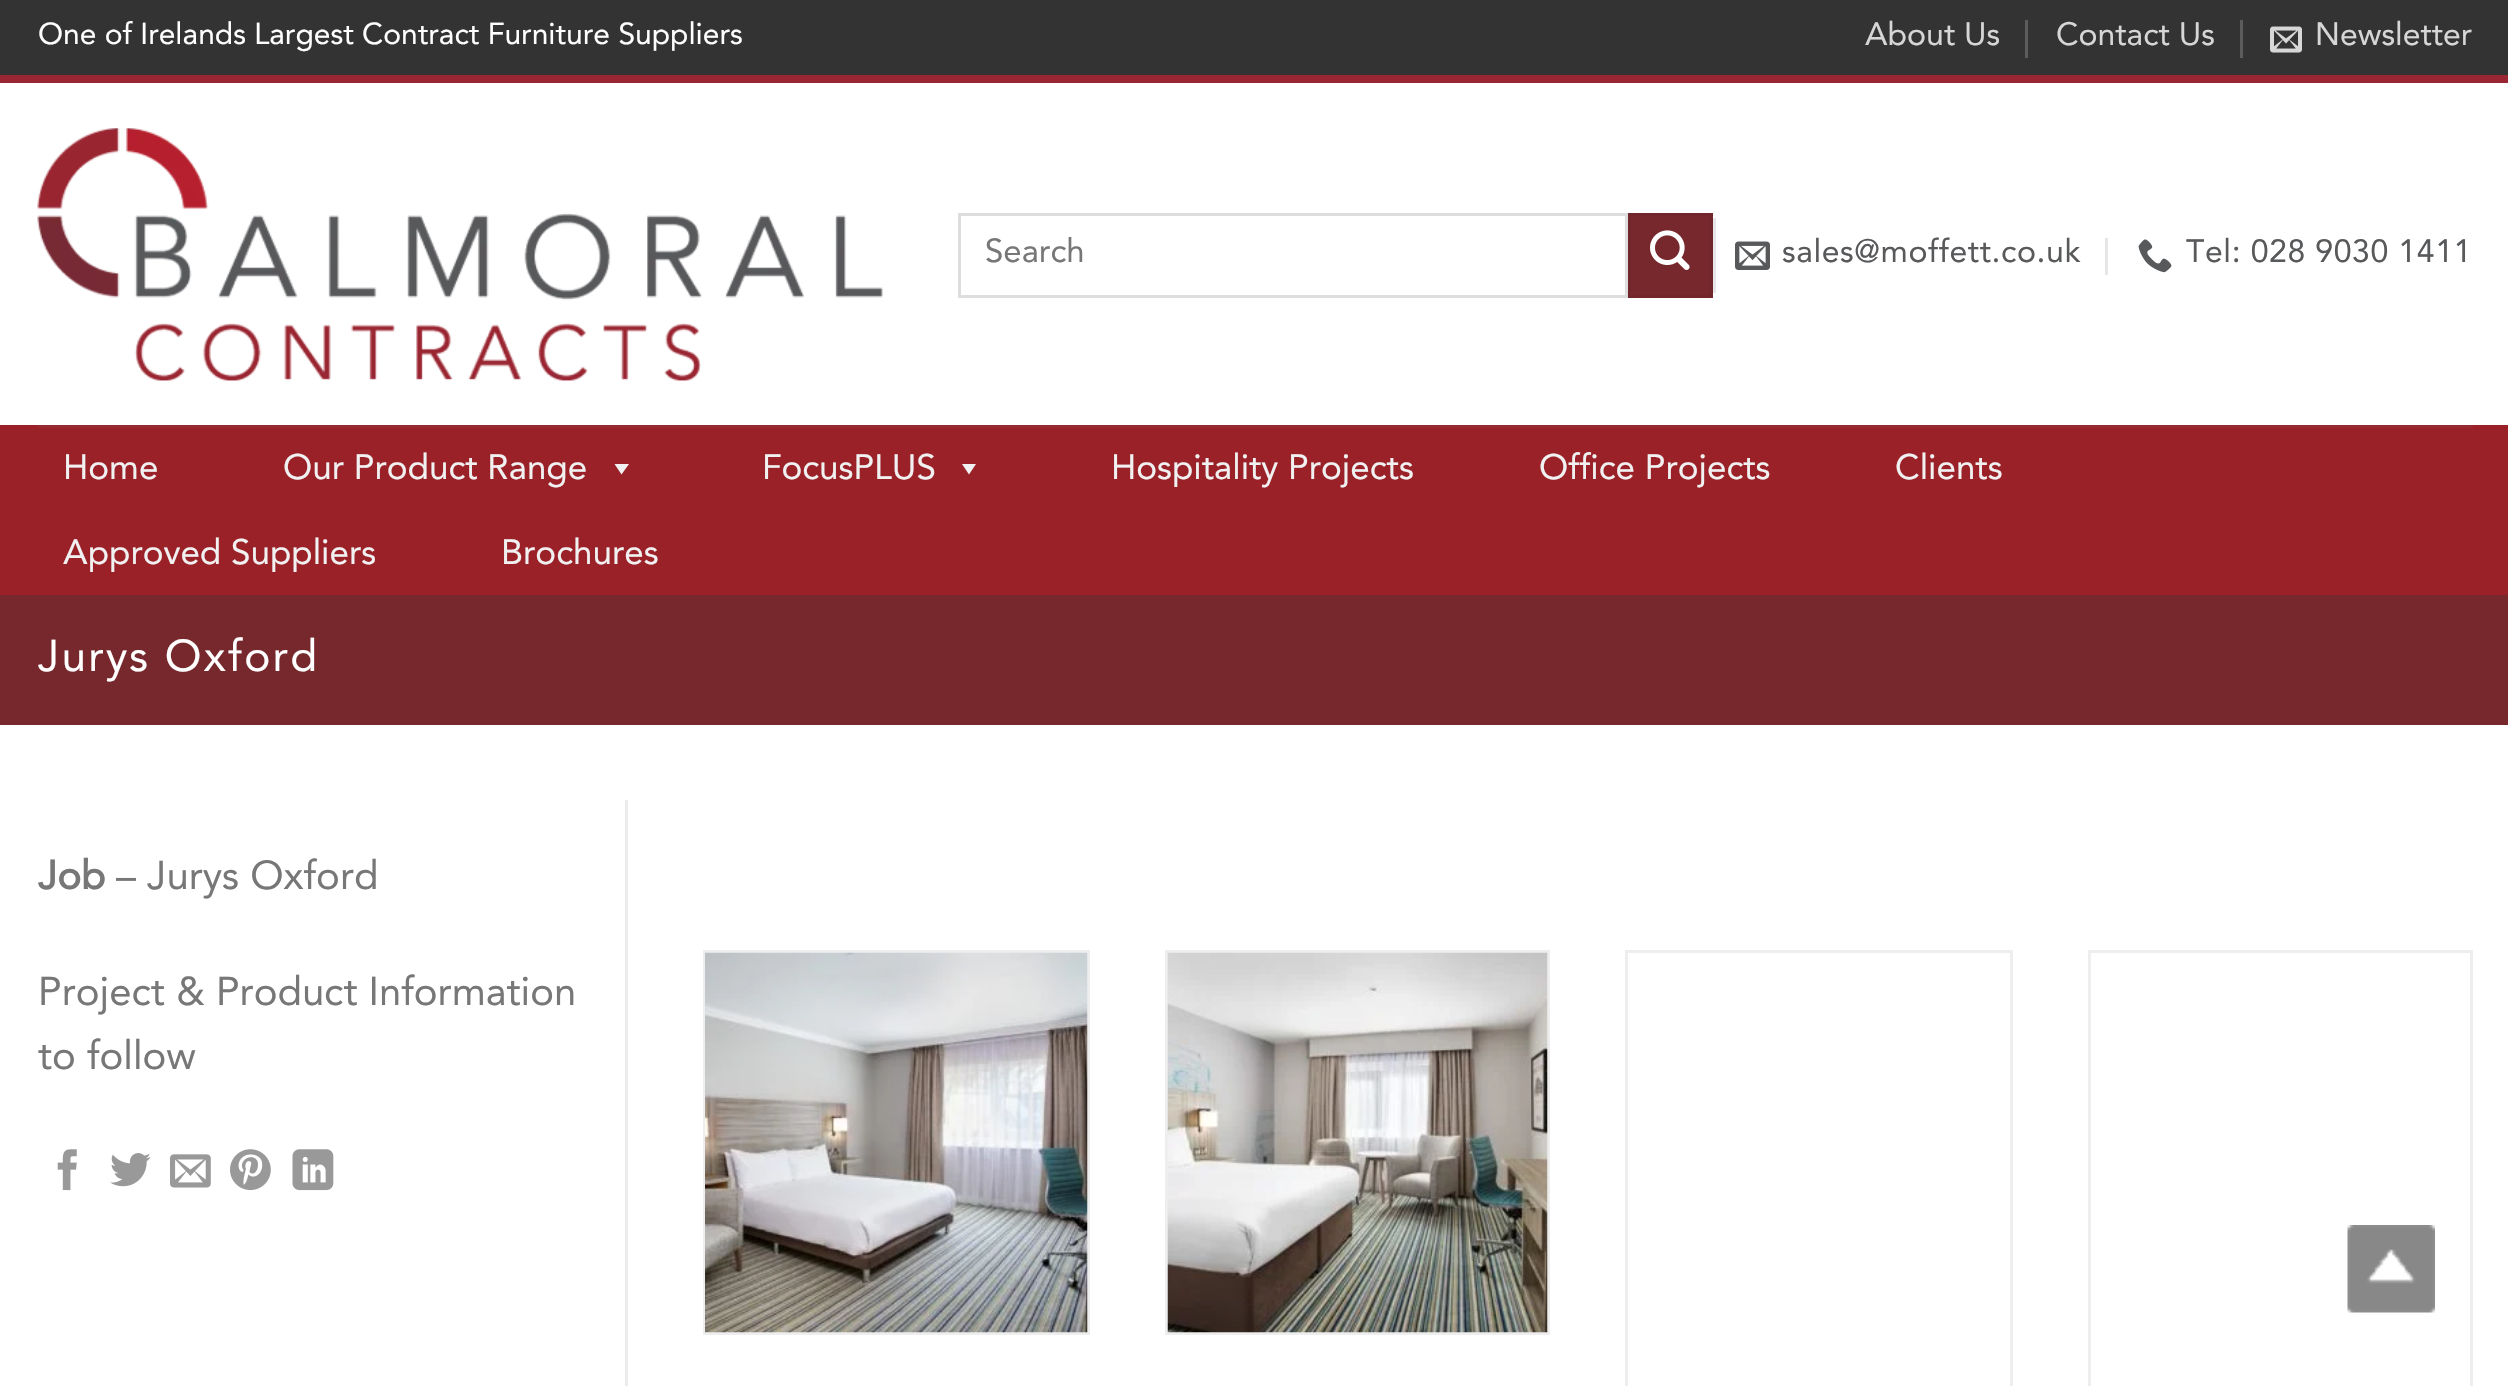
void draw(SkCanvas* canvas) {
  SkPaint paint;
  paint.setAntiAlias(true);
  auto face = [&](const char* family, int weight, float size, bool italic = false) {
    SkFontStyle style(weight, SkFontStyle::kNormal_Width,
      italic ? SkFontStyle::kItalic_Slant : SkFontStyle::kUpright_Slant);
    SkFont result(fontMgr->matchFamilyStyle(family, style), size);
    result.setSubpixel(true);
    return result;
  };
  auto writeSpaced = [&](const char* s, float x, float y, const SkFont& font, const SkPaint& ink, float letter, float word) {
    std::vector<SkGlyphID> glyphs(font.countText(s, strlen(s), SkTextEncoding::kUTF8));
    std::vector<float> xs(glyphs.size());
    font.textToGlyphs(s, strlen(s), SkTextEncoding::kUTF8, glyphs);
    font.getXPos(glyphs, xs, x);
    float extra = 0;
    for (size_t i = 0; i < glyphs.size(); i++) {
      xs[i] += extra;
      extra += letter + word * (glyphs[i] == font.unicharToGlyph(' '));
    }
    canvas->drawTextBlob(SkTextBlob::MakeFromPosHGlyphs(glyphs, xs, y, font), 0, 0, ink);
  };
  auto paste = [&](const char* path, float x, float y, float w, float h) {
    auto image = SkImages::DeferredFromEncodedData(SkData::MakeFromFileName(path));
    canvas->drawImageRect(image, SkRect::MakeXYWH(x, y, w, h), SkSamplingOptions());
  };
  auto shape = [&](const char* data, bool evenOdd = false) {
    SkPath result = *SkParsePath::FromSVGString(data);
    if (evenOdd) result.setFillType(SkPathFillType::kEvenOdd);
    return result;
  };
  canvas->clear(0xffffffff);
  {
    const struct { float x, y, w, h; SkColor color; } items[] = {
      {0, 0, 2508, 75, 0xff333333},
      {0, 75, 2508, 8, 0xff992632},
      {2025, 20, 3, 38, 0xff5c5c5c},
      {2240, 20, 3, 38, 0xff5c5c5c},
    };
    for (auto [x, y, w, h, color] : items) {
      paint.setColor(color);
      canvas->drawRect(SkRect::MakeXYWH(x, y, w, h), paint);
    }
  }
  paste("img/1.png", 2270, 26, 32, 27);
  paste("img/2.png", 37, 128, 846, 253);
  paint.setStroke(true);
  paint.setStrokeWidth(3);
  paint.setColor(0xffdddddd);
  canvas->drawRect(SkRect::MakeXYWH(959.5f, 214.5f, 667, 82), paint);
  paint.setStroke(false);
  paint.setColor(0xff76282d);
  canvas->drawRect(SkRect::MakeXYWH(1629.5f, 214.5f, 82, 82), paint);
  paint.setStroke(true);
  paint.setColor(0xff70262b);
  canvas->drawRect(SkRect::MakeXYWH(1629.5f, 214.5f, 82, 82), paint);
  paste("img/3.png", 1650, 230, 40, 40);
  paint.setStroke(false);
  paint.setColor(0xffe6e6e6);
  canvas->drawRect(SkRect::MakeXYWH(1713, 218, 3, 75), paint);
  paste("img/4.png", 1735, 241, 35, 29);
  canvas->drawRect(SkRect::MakeXYWH(2105, 238, 3, 37), paint);
  paste("img/5.png", 2138, 239, 34, 34);
  paint.setColor(0xff9a2128);
  canvas->drawRect(SkRect::MakeXYWH(0, 425, 2508, 170), paint);
  paint.setColor(0xff962a30);
  canvas->drawRect(SkRect::MakeXYWH(38, 425, 2435, 3), paint);
  paint.setColor(0xfff1f1f1);
  canvas->drawPath(shape("M629 464L621.5 474.5L614.5 464Z"), paint);
  canvas->drawPath(shape("M976 464L969 474.5L962 464Z"), paint);
  paint.setColor(0xff76282d);
  canvas->drawRect(SkRect::MakeXYWH(0, 595, 2508, 130), paint);
  paint.setColor(0xffececec);
  canvas->drawRect(SkRect::MakeXYWH(625, 800, 3, 586), paint);
  paste("img/6.png", 57, 1149, 20, 42);
  paste("img/7.png", 110, 1153, 41, 34);
  paste("img/8.png", 170, 1154, 41, 34);
  paste("img/9.png", 230, 1149, 41, 42);
  paste("img/10.png", 292, 1149, 42, 42);
  paint.setStroke(true);
  paint.setColor(0xffeeeeee);
  canvas->drawRect(SkRect::MakeXYWH(704.5f, 951.5f, 384, 382), paint);
  paste("img/11.png", 705, 952, 383, 381);
  canvas->drawRect(SkRect::MakeXYWH(1166.5f, 951.5f, 382, 382), paint);
  paste("img/12.png", 1167, 952, 381, 381);
  canvas->drawRect(SkRect::MakeXYWH(1626.5f, 951.5f, 385, 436), paint);
  canvas->drawRect(SkRect::MakeXYWH(2089.5f, 951.5f, 382, 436), paint);
  paste("img/13.png", 2347, 1225, 88, 88);
  auto f0 = face("Avenir", 400, 30);
  paint.setStroke(false);
  paint.setColor(0xffffffff);
  canvas->drawString("One of Irelands Largest Contract Furniture Suppliers", 38, 44, f0, paint);
  auto f1 = face("Avenir", 400, 32);
  paint.setColor(0xffd6d6d6);
  {
    const struct { const char* s; float x, y; } items[] = {
      {"About Us", 1865, 45},
      {"Contact Us", 2056, 45},
      {"Newsletter", 2315, 45},
    };
    for (auto [s, x, y] : items) {
      canvas->drawString(s, x, y, f1, paint);
    }
  }
  auto f2 = face("Avenir", 400, 33);
  paint.setColor(0xff777777);
  canvas->drawString("Search", 985, 262, f2, paint);
  paint.setColor(0xff58595b);
  writeSpaced("sales@moffett.co.uk", 1782, 262, f1, paint, 0.6f, 0);
  writeSpaced("Tel: 028 9030 1411", 2186, 262, f1, paint, 0.6f, 0);
  auto f3 = face("Avenir", 400, 35);
  paint.setColor(0xfff1f1f1);
  {
    const struct { const char* s; float x, y; } items[] = {
      {"Home", 63, 479},
      {"Our Product Range", 283, 479},
      {"FocusPLUS", 762, 479},
      {"Hospitality Projects", 1111, 479},
      {"Office Projects", 1539, 479},
      {"Clients", 1895, 479},
      {"Approved Suppliers", 63, 564},
      {"Brochures", 501, 564},
    };
    for (auto [s, x, y] : items) {
      canvas->drawString(s, x, y, f3, paint);
    }
  }
  auto f4 = face("Avenir", 400, 44);
  paint.setColor(0xffffffff);
  writeSpaced("Jurys Oxford", 38, 671, f4, paint, 2.25f, 0);
  auto f5 = face("Avenir", 700, 40);
  paint.setColor(0xff777777);
  canvas->drawString("Job", 38, 889, f5, paint);
  auto f6 = face("Avenir", 400, 40);
  {
    const struct { const char* s; float x, y; } items[] = {
      {"– Jurys Oxford", 116, 889},
      {"Project & Product Information", 38, 1005},
      {"to follow", 38, 1069},
    };
    for (auto [s, x, y] : items) {
      canvas->drawString(s, x, y, f6, paint);
    }
  }
}
